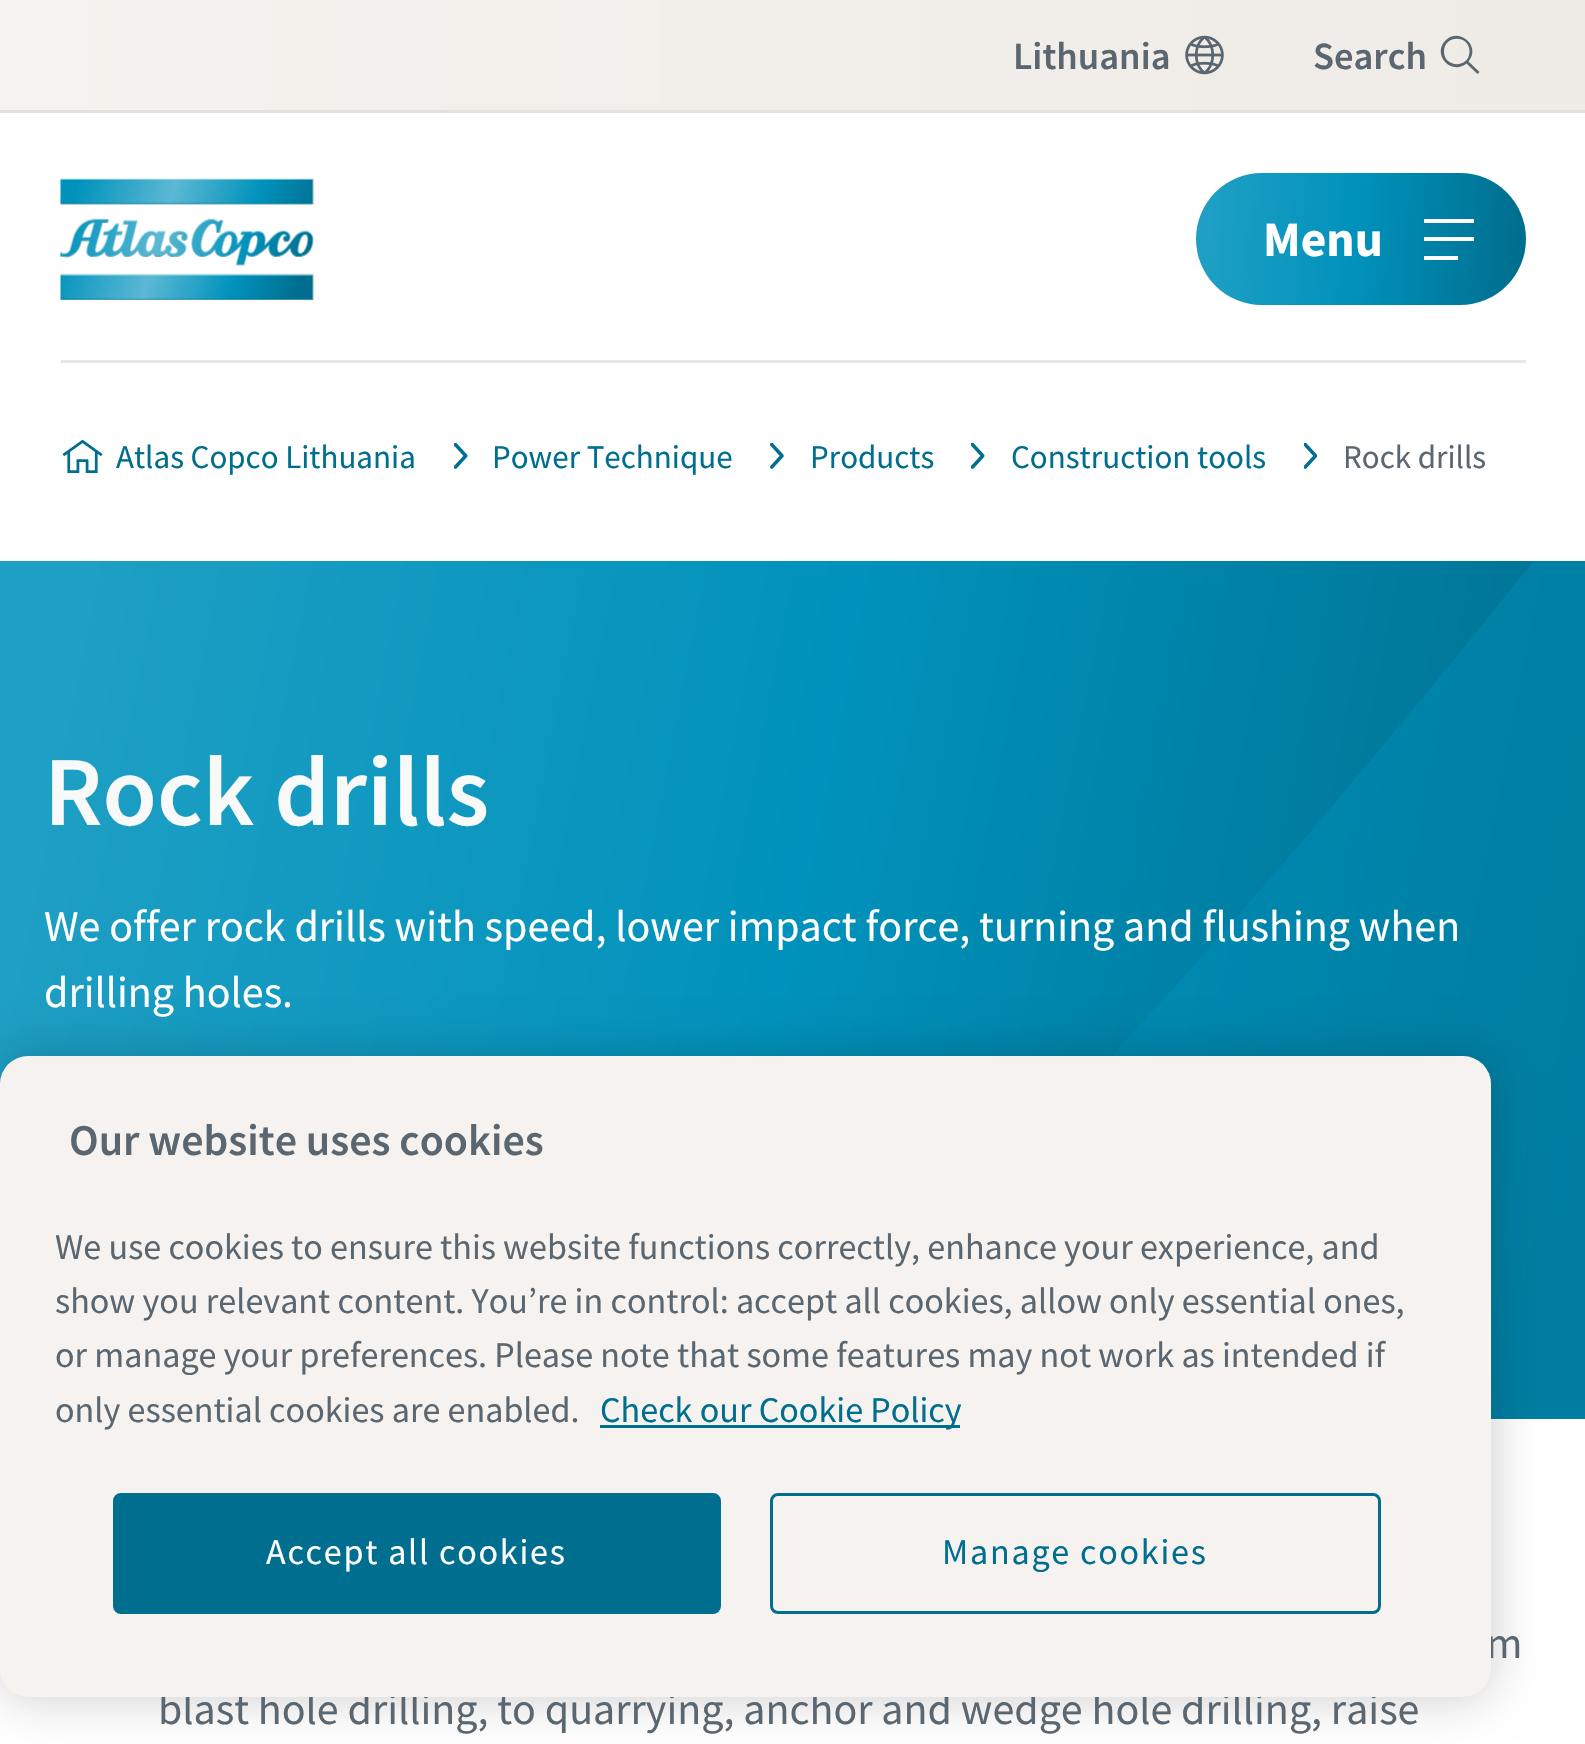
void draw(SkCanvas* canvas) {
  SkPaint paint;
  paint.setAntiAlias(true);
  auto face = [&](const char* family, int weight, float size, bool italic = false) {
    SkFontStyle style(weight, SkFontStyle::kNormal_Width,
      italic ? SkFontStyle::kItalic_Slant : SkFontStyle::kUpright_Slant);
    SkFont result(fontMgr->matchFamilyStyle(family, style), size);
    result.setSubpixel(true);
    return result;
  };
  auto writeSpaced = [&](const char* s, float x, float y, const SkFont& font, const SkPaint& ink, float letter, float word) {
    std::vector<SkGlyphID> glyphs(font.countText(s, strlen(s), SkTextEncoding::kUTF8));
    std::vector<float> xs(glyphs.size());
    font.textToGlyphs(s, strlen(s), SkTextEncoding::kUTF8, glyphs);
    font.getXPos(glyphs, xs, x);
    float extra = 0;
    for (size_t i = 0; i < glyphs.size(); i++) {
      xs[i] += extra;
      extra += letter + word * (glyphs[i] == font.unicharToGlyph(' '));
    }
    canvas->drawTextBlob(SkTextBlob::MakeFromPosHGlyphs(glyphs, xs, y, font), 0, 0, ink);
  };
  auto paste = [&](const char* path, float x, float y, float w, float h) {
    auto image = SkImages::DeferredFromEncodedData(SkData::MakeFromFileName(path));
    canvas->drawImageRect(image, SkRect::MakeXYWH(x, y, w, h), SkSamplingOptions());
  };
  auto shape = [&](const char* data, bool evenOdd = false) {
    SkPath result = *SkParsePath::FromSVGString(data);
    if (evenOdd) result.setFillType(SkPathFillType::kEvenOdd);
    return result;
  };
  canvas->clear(0xffffffff);
  {
    const SkColor colors[] = {0xfff5f2ef, 0xffefebe6};
    const float stops[] = {0, 1};
    const SkPoint ends[] = {{0, 55}, {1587, 55}};
    paint.setShader(SkGradientShader::MakeLinear(ends, colors, stops, 2, SkTileMode::kClamp));
    paint.setAlpha(255);
  }
  canvas->drawRect(SkRect::MakeXYWH(0, 0, 1585, 110), paint);
  paint.setShader(nullptr);
  paint.setColor(0xffe7e0da);
  canvas->drawRect(SkRect::MakeXYWH(0, 110, 1585, 3), paint);
  paste("img/1.png", 1185, 35, 39, 40);
  paint.setColor(0xff5b6770);
  canvas->drawPath(shape("M1479.5 72L1468.5 61.5C1481.5 46.5 1459.5 26.5 1445.5 40.5C1431.5 54.5 1451.5 76 1466.5 63.5L1477.5 74ZM1444 51.5C1444 34.5 1470 34.5 1469.5 52C1469 68.5 1444 68 1444 51.5Z"), paint);
  paste("img/2.png", 60, 178, 254, 122);
  {
    const SkColor colors[] = {0xff1f9fc4, 0xff0092bc, 0xff006f8f};
    const float stops[] = {0.04f, 0.48f, 0.96f};
    const SkPoint ends[] = {{1192, 227}, {1530, 251}};
    paint.setShader(SkGradientShader::MakeLinear(ends, colors, stops, 3, SkTileMode::kClamp));
    paint.setAlpha(255);
  }
  canvas->drawRoundRect(SkRect::MakeXYWH(1196, 173, 330, 132), 66, 66, paint);
  paint.setShader(nullptr);
  paint.setColor(0xffffffff);
  canvas->drawPath(shape("M1474 219H1424V223H1474ZM1458 256H1424V260H1458ZM1474 237H1424V241H1474Z"), paint);
  paint.setColor(0xffe6e6e6);
  canvas->drawRect(SkRect::MakeXYWH(61, 360, 1465, 3), paint);
  paste("img/3.png", 62, 439, 41, 34);
  paste("img/4.png", 454, 443, 14, 26);
  paste("img/5.png", 770, 443, 14, 26);
  paste("img/4.png", 971, 443, 14, 26);
  paste("img/6.png", 1304, 443, 13, 26);
  {
    const SkColor colors[] = {0xff1f9fc4, 0xff0092bc, 0xff006f8f};
    const float stops[] = {0.04f, 0.49f, 0.97f};
    const SkPoint ends[] = {{-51, 826}, {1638, 1154}};
    paint.setShader(SkGradientShader::MakeLinear(ends, colors, stops, 3, SkTileMode::kClamp));
    paint.setAlpha(255);
  }
  canvas->drawRect(SkRect::MakeXYWH(0, 561, 1585, 858), paint);
  canvas->save();
  canvas->clipRect(SkRect::MakeXYWH(0, 561, 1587, 858));
  paint.setShader(nullptr);
  paint.setColor(0x660092bc);
  canvas->drawPath(shape("M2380 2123H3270V-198H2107C1424 740 624 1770 24 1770C-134 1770-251 1719-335 1613C-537 1356-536 789-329-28C-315-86-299-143-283-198H-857V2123H764C1353 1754 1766 1252 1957 988C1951 1405 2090 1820 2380 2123Z", true), paint);
  canvas->restore();
  paint.setColor(0x33000000);
  paint.setMaskFilter(SkMaskFilter::MakeBlur(kNormal_SkBlurStyle, 25));
  canvas->drawRoundRect(SkRect::MakeXYWH(0, 1056, 1491, 641), 28, 28, paint);
  paint.setMaskFilter(nullptr);
  auto f0 = face("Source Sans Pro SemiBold", 600, 38.5f);
  paint.setColor(0xff5b6770);
  canvas->drawString("Lithuania", 1013, 69, f0, paint);
  canvas->drawString("Search", 1313, 69, f0, paint);
  auto f1 = face("Source Sans Pro", 700, 49.5f);
  paint.setColor(0xffffffff);
  canvas->drawString("Menu", 1263, 256, f1, paint);
  auto f2 = face("Source Sans Pro", 400, 33);
  paint.setColor(0xff006f8f);
  {
    const struct { const char* s; float x, y; } items[] = {
      {"Atlas Copco Lithuania", 116, 468},
      {"Power Technique", 492, 468},
      {"Products", 810, 468},
      {"Construction tools", 1011, 468},
    };
    for (auto [s, x, y] : items) {
      canvas->drawString(s, x, y, f2, paint);
    }
  }
  paint.setColor(0xff5b6770);
  canvas->drawString("Rock drills", 1343, 468, f2, paint);
  auto f3 = face("Source Sans Pro SemiBold", 600, 99);
  paint.setColor(0xfff8f9f9);
  canvas->drawString("Rock drills", 44, 825, f3, paint);
  auto f4 = face("Source Sans Pro", 400, 44);
  paint.setColor(0xffffffff);
  canvas->drawString("We offer rock drills with speed, lower impact force, turning and flushing when", 44, 941, f4, paint);
  canvas->drawString("drilling holes.", 44, 1007, f4, paint);
  paint.setColor(0xff5b6770);
  canvas->drawString("m", 1486, 1658, f4, paint);
  canvas->drawString("blast hole drilling, to quarrying, anchor and wedge hole drilling, raise", 158, 1724, f4, paint);
  paint.setColor(0xfff5f2ef);
  canvas->drawRoundRect(SkRect::MakeXYWH(0, 1056, 1491, 641), 28, 28, paint);
  auto f5 = face("Source Sans Pro SemiBold", 600, 44);
  paint.setColor(0xff5b6770);
  canvas->drawString("Our website uses cookies", 69, 1155, f5, paint);
  auto f6 = face("Source Sans Pro", 400, 36.1f);
  {
    const struct { const char* s; float x, y; } items[] = {
      {"We use cookies to ensure this website functions correctly, enhance your experience, and", 55, 1259},
      {"show you relevant content. You’re in control: accept all cookies, allow only essential ones,", 55, 1313},
      {"or manage your preferences. Please note that some features may not work as intended if", 55, 1367},
      {"only essential cookies are enabled.", 55, 1422},
    };
    for (auto [s, x, y] : items) {
      canvas->drawString(s, x, y, f6, paint);
    }
  }
  paint.setColor(0xff006f8f);
  canvas->drawRect(SkRect::MakeXYWH(600, 1425, 360, 3), paint);
  canvas->drawString("Check our Cookie Policy", 600, 1422, f6, paint);
  canvas->drawRoundRect(SkRect::MakeXYWH(114.5f, 1494.5f, 605, 118), 6.5f, 6.5f, paint);
  paint.setStroke(true);
  paint.setStrokeWidth(3);
  canvas->drawRoundRect(SkRect::MakeXYWH(114.5f, 1494.5f, 605, 118), 6.5f, 6.5f, paint);
  paint.setStroke(false);
  paint.setColor(0xffffffff);
  writeSpaced("Accept all cookies", 266, 1564, f6, paint, 1.75f, 0);
  paint.setStroke(true);
  paint.setColor(0xff006f8f);
  canvas->drawRoundRect(SkRect::MakeXYWH(771.5f, 1494.5f, 608, 118), 6.5f, 6.5f, paint);
  paint.setStroke(false);
  writeSpaced("Manage cookies", 942, 1564, f6, paint, 1.75f, 0);
}
